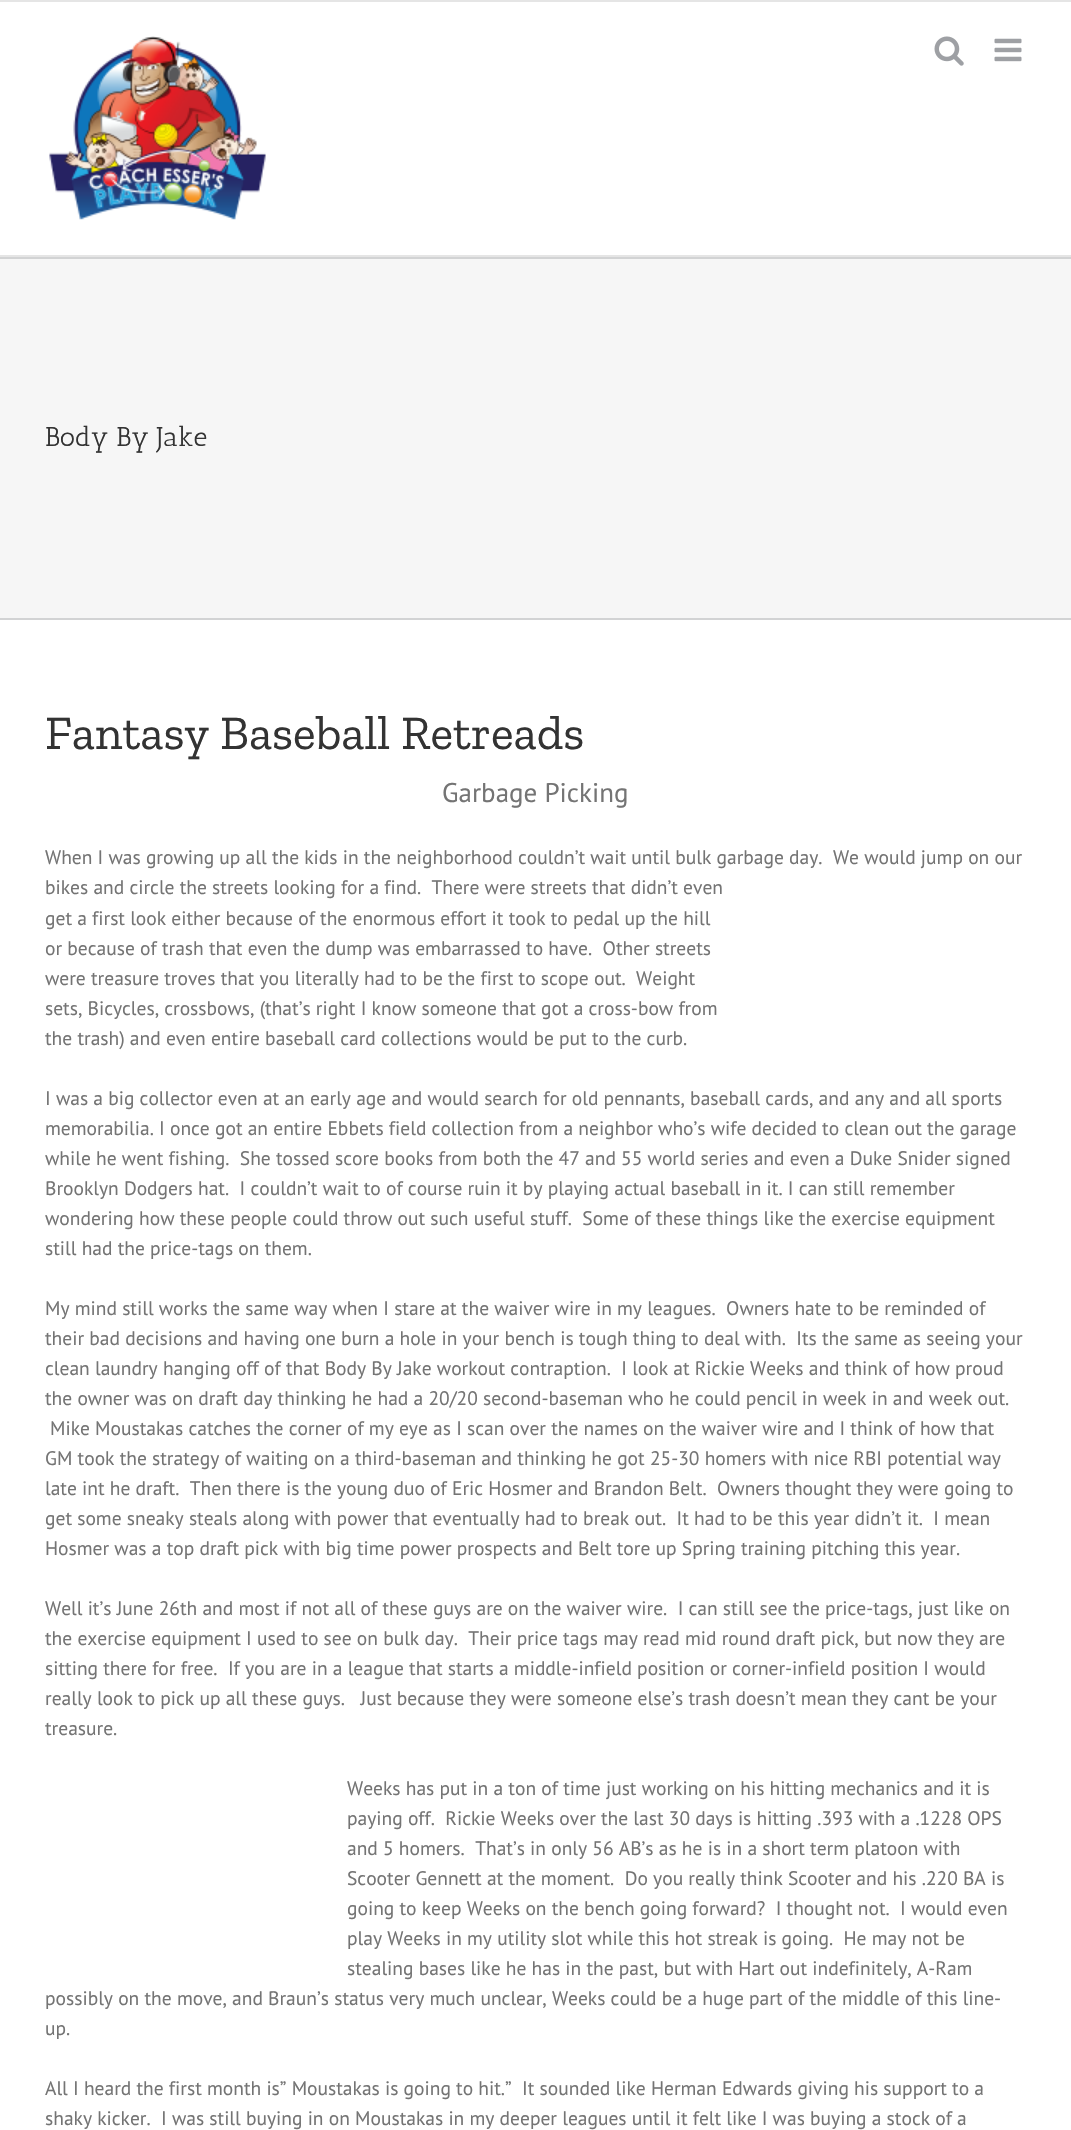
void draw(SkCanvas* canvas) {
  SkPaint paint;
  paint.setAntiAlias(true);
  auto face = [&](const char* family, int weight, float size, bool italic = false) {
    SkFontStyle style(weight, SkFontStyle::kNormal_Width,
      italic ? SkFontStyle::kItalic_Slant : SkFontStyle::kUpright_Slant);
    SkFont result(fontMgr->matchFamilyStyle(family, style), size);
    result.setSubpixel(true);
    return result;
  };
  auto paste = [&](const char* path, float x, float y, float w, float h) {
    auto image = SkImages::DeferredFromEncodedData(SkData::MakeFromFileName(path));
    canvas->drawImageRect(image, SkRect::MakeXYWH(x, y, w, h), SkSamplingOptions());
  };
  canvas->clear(0xffffffff);
  paint.setColor(0xffe5e5e5);
  canvas->drawRect(SkRect::MakeXYWH(0, 0, 1071, 2), paint);
  canvas->drawRect(SkRect::MakeXYWH(0, 255, 1071, 2), paint);
  paste("img/1.png", 49, 36, 217, 184);
  paste("img/2.png", 934, 36, 30, 30);
  paste("img/3.png", 994, 38, 28, 24);
  {
    const struct { float x, y, w, h; SkColor color; } items[] = {
      {0, 259, 1071, 359, 0xfff6f6f6},
      {0, 257, 1071, 2, 0xffd2d3d4},
      {0, 618, 1071, 2, 0xffd2d3d4},
    };
    for (auto [x, y, w, h, color] : items) {
      paint.setColor(color);
      canvas->drawRect(SkRect::MakeXYWH(x, y, w, h), paint);
    }
  }
  auto f0 = face("Antic Slab", 400, 27);
  paint.setColor(0xff333333);
  canvas->drawString("Body By Jake", 45, 446, f0, paint);
  auto f1 = face("Zilla Slab", 400, 48);
  canvas->drawString("Fantasy Baseball Retreads", 45, 749, f1, paint);
  auto f2 = face("PT Sans", 400, 27);
  paint.setColor(0xff747474);
  canvas->drawString("Garbage Picking", 442, 802, f2, paint);
  auto f3 = face("PT Sans", 400, 19.5f);
  {
    const struct { const char* s; float x, y; } items[] = {
      {"When I was growing up all the kids in the neighborhood couldn’t wait until bulk garbage day.  We would jump on our", 45, 864},
      {"bikes and circle the streets looking for a find.  There were streets that didn’t even", 45, 894},
      {"get a first look either because of the enormous effort it took to pedal up the hill", 45, 925},
      {"or because of trash that even the dump was embarrassed to have.  Other streets", 45, 955},
      {"were treasure troves that you literally had to be the first to scope out.  Weight", 45, 985},
      {"sets, Bicycles, crossbows, (that’s right I know someone that got a cross-bow from", 45, 1015},
      {"the trash) and even entire baseball card collections would be put to the curb.", 45, 1045},
      {"I was a big collector even at an early age and would search for old pennants, baseball cards, and any and all sports", 45, 1105},
      {"memorabilia. I once got an entire Ebbets field collection from a neighbor who’s wife decided to clean out the garage", 45, 1135},
      {"while he went fishing.  She tossed score books from both the 47 and 55 world series and even a Duke Snider signed", 45, 1165},
      {"Brooklyn Dodgers hat.  I couldn’t wait to of course ruin it by playing actual baseball in it. I can still remember", 45, 1195},
      {"wondering how these people could throw out such useful stuff.  Some of these things like the exercise equipment", 45, 1225},
      {"still had the price-tags on them.", 45, 1255},
      {"My mind still works the same way when I stare at the waiver wire in my leagues.  Owners hate to be reminded of", 45, 1315},
      {"their bad decisions and having one burn a hole in your bench is tough thing to deal with.  Its the same as seeing your", 45, 1345},
      {"clean laundry hanging off of that Body By Jake workout contraption.  I look at Rickie Weeks and think of how proud", 45, 1375},
      {"the owner was on draft day thinking he had a 20/20 second-baseman who he could pencil in week in and week out.", 45, 1405},
      {"Mike Moustakas catches the corner of my eye as I scan over the names on the waiver wire and I think of how that", 50, 1435},
      {"GM took the strategy of waiting on a third-baseman and thinking he got 25-30 homers with nice RBI potential way", 45, 1465},
      {"late int he draft.  Then there is the young duo of Eric Hosmer and Brandon Belt.  Owners thought they were going to", 45, 1495},
      {"get some sneaky steals along with power that eventually had to break out.  It had to be this year didn’t it.  I mean", 45, 1525},
      {"Hosmer was a top draft pick with big time power prospects and Belt tore up Spring training pitching this year.", 45, 1555},
      {"Well it’s June 26th and most if not all of these guys are on the waiver wire.  I can still see the price-tags, just like on", 45, 1615},
      {"the exercise equipment I used to see on bulk day.  Their price tags may read mid round draft pick, but now they are", 45, 1645},
      {"sitting there for free.  If you are in a league that starts a middle-infield position or corner-infield position I would", 45, 1675},
      {"really look to pick up all these guys.   Just because they were someone else’s trash doesn’t mean they cant be your", 45, 1705},
      {"treasure.", 45, 1735},
      {"Weeks has put in a ton of time just working on his hitting mechanics and it is", 347, 1795},
      {"paying off.  Rickie Weeks over the last 30 days is hitting .393 with a .1228 OPS", 347, 1825},
      {"and 5 homers.  That’s in only 56 AB’s as he is in a short term platoon with", 347, 1855},
      {"Scooter Gennett at the moment.  Do you really think Scooter and his .220 BA is", 347, 1885},
      {"going to keep Weeks on the bench going forward?  I thought not.  I would even", 347, 1915},
      {"play Weeks in my utility slot while this hot streak is going.  He may not be", 347, 1945},
      {"stealing bases like he has in the past, but with Hart out indefinitely, A-Ram", 347, 1975},
      {"possibly on the move, and Braun’s status very much unclear, Weeks could be a huge part of the middle of this line-", 45, 2005},
      {"up.", 45, 2035},
      {"All I heard the first month is” Moustakas is going to hit.”  It sounded like Herman Edwards giving his support to a", 45, 2095},
      {"shaky kicker.  I was still buying in on Moustakas in my deeper leagues until it felt like I was buying a stock of a", 45, 2125},
    };
    for (auto [s, x, y] : items) {
      canvas->drawString(s, x, y, f3, paint);
    }
  }
}
